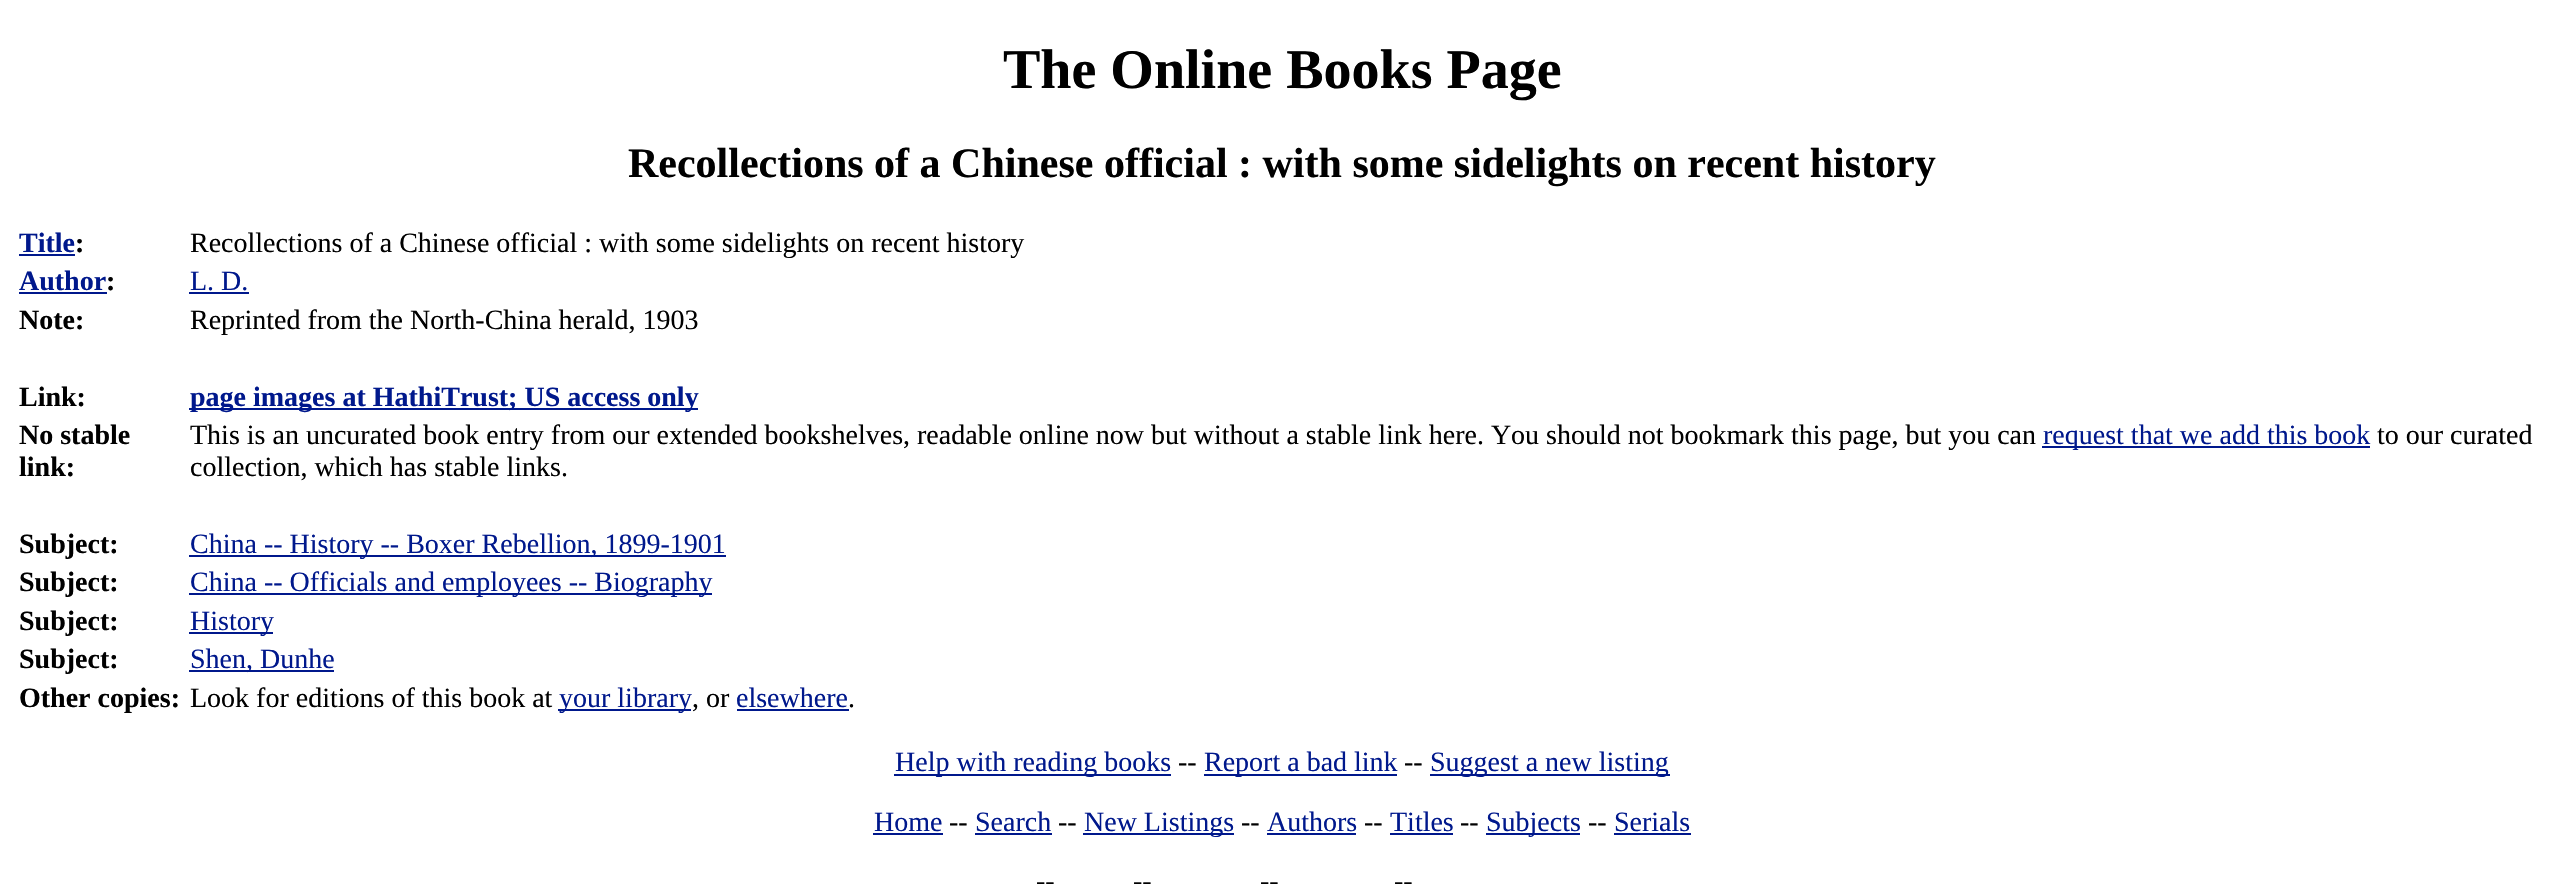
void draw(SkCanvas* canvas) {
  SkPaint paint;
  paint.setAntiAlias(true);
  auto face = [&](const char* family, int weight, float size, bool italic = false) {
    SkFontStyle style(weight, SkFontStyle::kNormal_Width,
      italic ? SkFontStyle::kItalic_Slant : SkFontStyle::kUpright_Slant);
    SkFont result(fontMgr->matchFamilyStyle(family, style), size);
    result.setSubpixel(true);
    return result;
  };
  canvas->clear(0xffffffff);
  {
    const struct { float x, y, w, h; SkColor color; } items[] = {
      {19, 254, 56, 2, 0xff00188c},
      {19, 292, 88, 2, 0xff00188c},
      {189, 292, 60, 2, 0xff00188c},
      {189, 408, 509, 2, 0xff00188c},
      {2042, 446, 328, 2, 0xff00188c},
      {189, 555, 537, 2, 0xff00188c},
      {189, 593, 523, 2, 0xff00188c},
      {189, 632, 84, 2, 0xff00188c},
      {189, 670, 145, 2, 0xff00188c},
      {558, 709, 133, 2, 0xff00188c},
      {737, 709, 112, 2, 0xff00188c},
      {894, 774, 277, 2, 0xff00188c},
      {1204, 774, 193, 2, 0xff00188c},
      {1430, 774, 240, 2, 0xff00188c},
      {873, 833, 70, 2, 0xff00188c},
      {975, 833, 77, 2, 0xff00188c},
      {1083, 833, 151, 2, 0xff00188c},
      {1267, 833, 89, 2, 0xff00188c},
      {1390, 833, 63, 2, 0xff00188c},
      {1486, 833, 94, 2, 0xff00188c},
      {1614, 833, 77, 2, 0xff00188c},
    };
    for (auto [x, y, w, h, color] : items) {
      paint.setColor(color);
      canvas->drawRect(SkRect::MakeXYWH(x, y, w, h), paint);
    }
  }
  auto f0 = face("Liberation Serif", 700, 56);
  paint.setColor(0xff000000);
  canvas->drawString("The Online Books Page", 1003, 88, f0, paint);
  auto f1 = face("Liberation Serif", 700, 42);
  canvas->drawString("Recollections of a Chinese official : with some sidelights on recent history", 628, 177, f1, paint);
  auto f2 = face("Liberation Serif", 700, 28);
  paint.setColor(0xff00188c);
  canvas->drawString("Title", 19, 252, f2, paint);
  paint.setColor(0xff000000);
  canvas->drawString(":", 75, 252, f2, paint);
  auto f3 = face("Liberation Serif", 400, 28);
  canvas->drawString("Recollections of a Chinese official : with some sidelights on recent history", 190, 252, f3, paint);
  paint.setColor(0xff00188c);
  canvas->drawString("Author", 19, 290, f2, paint);
  paint.setColor(0xff000000);
  canvas->drawString(":", 106, 290, f2, paint);
  paint.setColor(0xff00188c);
  canvas->drawString("L. D.", 190, 290, f3, paint);
  paint.setColor(0xff000000);
  canvas->drawString("Note:", 19, 329, f2, paint);
  canvas->drawString("Reprinted from the North-China herald, 1903", 190, 329, f3, paint);
  canvas->drawString("Link:", 19, 406, f2, paint);
  paint.setColor(0xff00188c);
  canvas->drawString("page images at HathiTrust; US access only", 190, 406, f2, paint);
  paint.setColor(0xff000000);
  canvas->drawString("No stable", 19, 444, f2, paint);
  canvas->drawString("link:", 19, 476, f2, paint);
  canvas->drawString("This is an uncurated book entry from our extended bookshelves, readable online now but without a stable link here. You should not bookmark this page, but you can", 190, 444, f3, paint);
  paint.setColor(0xff00188c);
  canvas->drawString("request that we add this book", 2043, 444, f3, paint);
  paint.setColor(0xff000000);
  canvas->drawString("to our curated", 2377, 444, f3, paint);
  canvas->drawString("collection, which has stable links.", 190, 476, f3, paint);
  canvas->drawString("Subject:", 19, 553, f2, paint);
  paint.setColor(0xff00188c);
  canvas->drawString("China -- History -- Boxer Rebellion, 1899-1901", 190, 553, f3, paint);
  paint.setColor(0xff000000);
  canvas->drawString("Subject:", 19, 591, f2, paint);
  paint.setColor(0xff00188c);
  canvas->drawString("China -- Officials and employees -- Biography", 190, 591, f3, paint);
  paint.setColor(0xff000000);
  canvas->drawString("Subject:", 19, 630, f2, paint);
  paint.setColor(0xff00188c);
  canvas->drawString("History", 190, 630, f3, paint);
  paint.setColor(0xff000000);
  canvas->drawString("Subject:", 19, 668, f2, paint);
  paint.setColor(0xff00188c);
  canvas->drawString("Shen, Dunhe", 190, 668, f3, paint);
  paint.setColor(0xff000000);
  canvas->drawString("Other copies:", 19, 707, f2, paint);
  canvas->drawString("Look for editions of this book at", 190, 707, f3, paint);
  paint.setColor(0xff00188c);
  canvas->drawString("your library", 559, 707, f3, paint);
  paint.setColor(0xff000000);
  canvas->drawString(", or", 692, 707, f3, paint);
  paint.setColor(0xff00188c);
  canvas->drawString("elsewhere", 736, 707, f3, paint);
  paint.setColor(0xff000000);
  canvas->drawString(".", 848, 707, f3, paint);
  paint.setColor(0xff00188c);
  canvas->drawString("Help with reading books", 895, 771, f3, paint);
  paint.setColor(0xff000000);
  canvas->drawString("--", 1178, 771, f3, paint);
  paint.setColor(0xff00188c);
  canvas->drawString("Report a bad link", 1204, 771, f3, paint);
  paint.setColor(0xff000000);
  canvas->drawString("--", 1404, 771, f3, paint);
  paint.setColor(0xff00188c);
  canvas->drawString("Suggest a new listing", 1430, 771, f3, paint);
  canvas->drawString("Home", 874, 831, f3, paint);
  paint.setColor(0xff000000);
  canvas->drawString("--", 949, 831, f3, paint);
  paint.setColor(0xff00188c);
  canvas->drawString("Search", 975, 831, f3, paint);
  paint.setColor(0xff000000);
  canvas->drawString("--", 1058, 831, f3, paint);
  paint.setColor(0xff00188c);
  canvas->drawString("New Listings", 1084, 831, f3, paint);
  paint.setColor(0xff000000);
  canvas->drawString("--", 1241, 831, f3, paint);
  paint.setColor(0xff00188c);
  canvas->drawString("Authors", 1267, 831, f3, paint);
  paint.setColor(0xff000000);
  canvas->drawString("--", 1364, 831, f3, paint);
  paint.setColor(0xff00188c);
  canvas->drawString("Titles", 1390, 831, f3, paint);
  paint.setColor(0xff000000);
  canvas->drawString("--", 1460, 831, f3, paint);
  paint.setColor(0xff00188c);
  canvas->drawString("Subjects", 1486, 831, f3, paint);
  paint.setColor(0xff000000);
  canvas->drawString("--", 1588, 831, f3, paint);
  paint.setColor(0xff00188c);
  canvas->drawString("Serials", 1614, 831, f3, paint);
  paint.setColor(0xff000000);
  {
    const struct { const char* s; float x, y; } items[] = {
      {"--", 1036, 890},
      {"--", 1133, 890},
      {"--", 1260, 890},
      {"--", 1394, 890},
    };
    for (auto [s, x, y] : items) {
      canvas->drawString(s, x, y, f3, paint);
    }
  }
}
